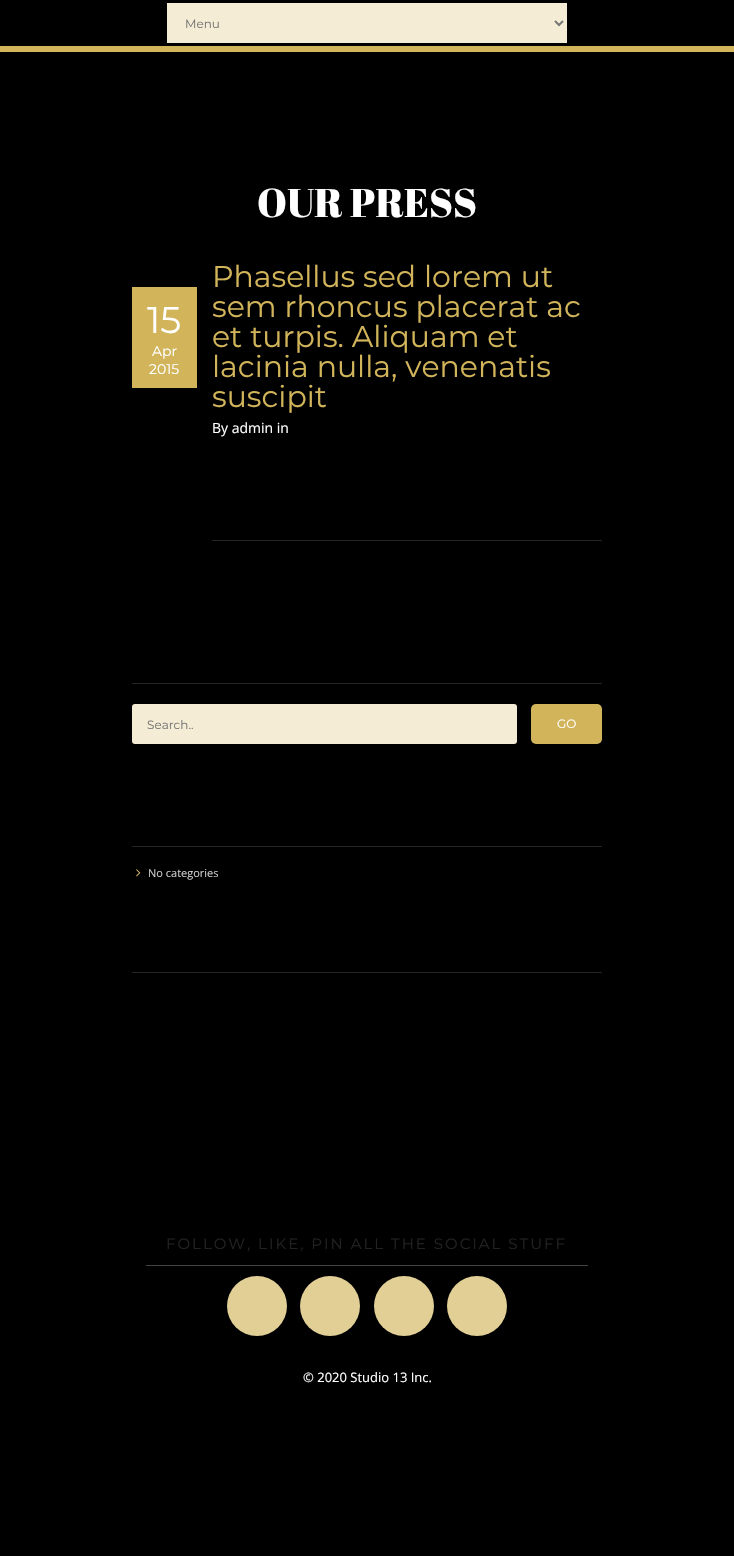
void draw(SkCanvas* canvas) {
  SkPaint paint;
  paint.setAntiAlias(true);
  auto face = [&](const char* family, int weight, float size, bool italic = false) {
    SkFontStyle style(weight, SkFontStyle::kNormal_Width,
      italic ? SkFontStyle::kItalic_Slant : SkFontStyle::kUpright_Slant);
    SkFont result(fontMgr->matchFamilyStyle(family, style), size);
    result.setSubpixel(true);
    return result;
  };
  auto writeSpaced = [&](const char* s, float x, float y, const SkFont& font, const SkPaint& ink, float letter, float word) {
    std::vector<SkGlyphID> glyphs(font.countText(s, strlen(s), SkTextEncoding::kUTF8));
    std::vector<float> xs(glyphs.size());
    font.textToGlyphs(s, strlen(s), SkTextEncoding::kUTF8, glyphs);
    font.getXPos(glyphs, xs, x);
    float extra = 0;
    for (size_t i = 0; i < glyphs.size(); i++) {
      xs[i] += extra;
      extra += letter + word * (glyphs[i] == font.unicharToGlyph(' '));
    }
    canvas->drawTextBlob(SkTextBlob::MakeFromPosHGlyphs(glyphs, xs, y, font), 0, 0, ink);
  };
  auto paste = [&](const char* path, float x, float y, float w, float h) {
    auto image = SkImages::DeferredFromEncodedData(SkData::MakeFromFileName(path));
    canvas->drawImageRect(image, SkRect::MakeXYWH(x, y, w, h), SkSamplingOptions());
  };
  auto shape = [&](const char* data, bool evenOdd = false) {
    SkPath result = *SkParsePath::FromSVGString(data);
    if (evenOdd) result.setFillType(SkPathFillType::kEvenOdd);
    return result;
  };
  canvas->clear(0xff000000);
  paint.setColor(0xffd2b55b);
  canvas->drawRect(SkRect::MakeXYWH(0, 46, 734, 6), paint);
  paint.setColor(0xfff4ecd4);
  canvas->drawRect(SkRect::MakeXYWH(167, 3, 400, 40), paint);
  paint.setStroke(true);
  paint.setStrokeWidth(2);
  paint.setColor(0xff777777);
  canvas->drawPath(shape("M555 21L559 25L563 21"), paint);
  paint.setStroke(false);
  {
    const struct { float x, y, w, h; SkColor color; } items[] = {
      {132, 287, 65, 101, 0xffd2b55b},
      {212, 540, 390, 1, 0xff252525},
      {132, 683, 470, 1, 0xff252525},
    };
    for (auto [x, y, w, h, color] : items) {
      paint.setColor(color);
      canvas->drawRect(SkRect::MakeXYWH(x, y, w, h), paint);
    }
  }
  paint.setColor(0xfff4ecd4);
  canvas->drawRoundRect(SkRect::MakeXYWH(132, 704, 385, 40), 3, 3, paint);
  paint.setColor(0xffd2b55b);
  canvas->drawRoundRect(SkRect::MakeXYWH(531, 704, 71, 40), 5, 5, paint);
  paint.setColor(0xff252525);
  canvas->drawRect(SkRect::MakeXYWH(132, 846, 470, 1), paint);
  paste("img/1.png", 136, 869, 5, 8);
  canvas->drawRect(SkRect::MakeXYWH(132, 972, 470, 1), paint);
  paint.setColor(0xff444444);
  canvas->drawRect(SkRect::MakeXYWH(146, 1265, 442, 1), paint);
  paint.setColor(0xffe1cf96);
  canvas->drawCircle(257, 1306, 30, paint);
  canvas->drawCircle(330, 1306, 30, paint);
  canvas->drawCircle(404, 1306, 30, paint);
  canvas->drawCircle(477, 1306, 30, paint);
  auto f0 = face("Montserrat", 400, 12);
  paint.setColor(0xff757575);
  canvas->drawString("Menu", 185, 28, f0, paint);
  auto f1 = face("Abril Fatface", 400, 40);
  paint.setColor(0xffffffff);
  canvas->drawString("OUR PRESS", 257, 217, f1, paint);
  auto f2 = face("Montserrat", 400, 30);
  paint.setColor(0xffd2b55b);
  {
    const struct { const char* s; float x, y; } items[] = {
      {"Phasellus sed lorem ut", 212, 287},
      {"sem rhoncus placerat ac", 212, 317},
      {"et turpis. Aliquam et", 212, 347},
      {"lacinia nulla, venenatis", 212, 377},
      {"suscipit", 212, 407},
    };
    for (auto [s, x, y] : items) {
      canvas->drawString(s, x, y, f2, paint);
    }
  }
  auto f3 = face("Montserrat", 400, 37);
  paint.setColor(0xffffffff);
  canvas->drawString("15", 147, 333, f3, paint);
  auto f4 = face("Montserrat", 400, 14);
  canvas->drawString("Apr", 152, 356, f4, paint);
  canvas->drawString("2015", 149, 374, f4, paint);
  auto f5 = face("Open Sans", 400, 14);
  canvas->drawString("By admin in", 212, 433, f5, paint);
  paint.setColor(0xff757575);
  canvas->drawString("Search..", 147, 729, f0, paint);
  paint.setColor(0xffffffff);
  canvas->drawString("GO", 557, 728, f0, paint);
  auto f6 = face("Open Sans", 400, 11);
  paint.setColor(0xffcccccc);
  canvas->drawString("No categories", 148, 877, f6, paint);
  auto f7 = face("Montserrat", 400, 15);
  paint.setColor(0xff222222);
  writeSpaced("FOLLOW, LIKE, PIN ALL THE SOCIAL STUFF", 166, 1249, f7, paint, 2, 0);
  auto f8 = face("Open Sans", 400, 13);
  paint.setColor(0xffffffff);
  canvas->drawString("© 2020 Studio 13 Inc.", 303, 1382, f8, paint);
}
